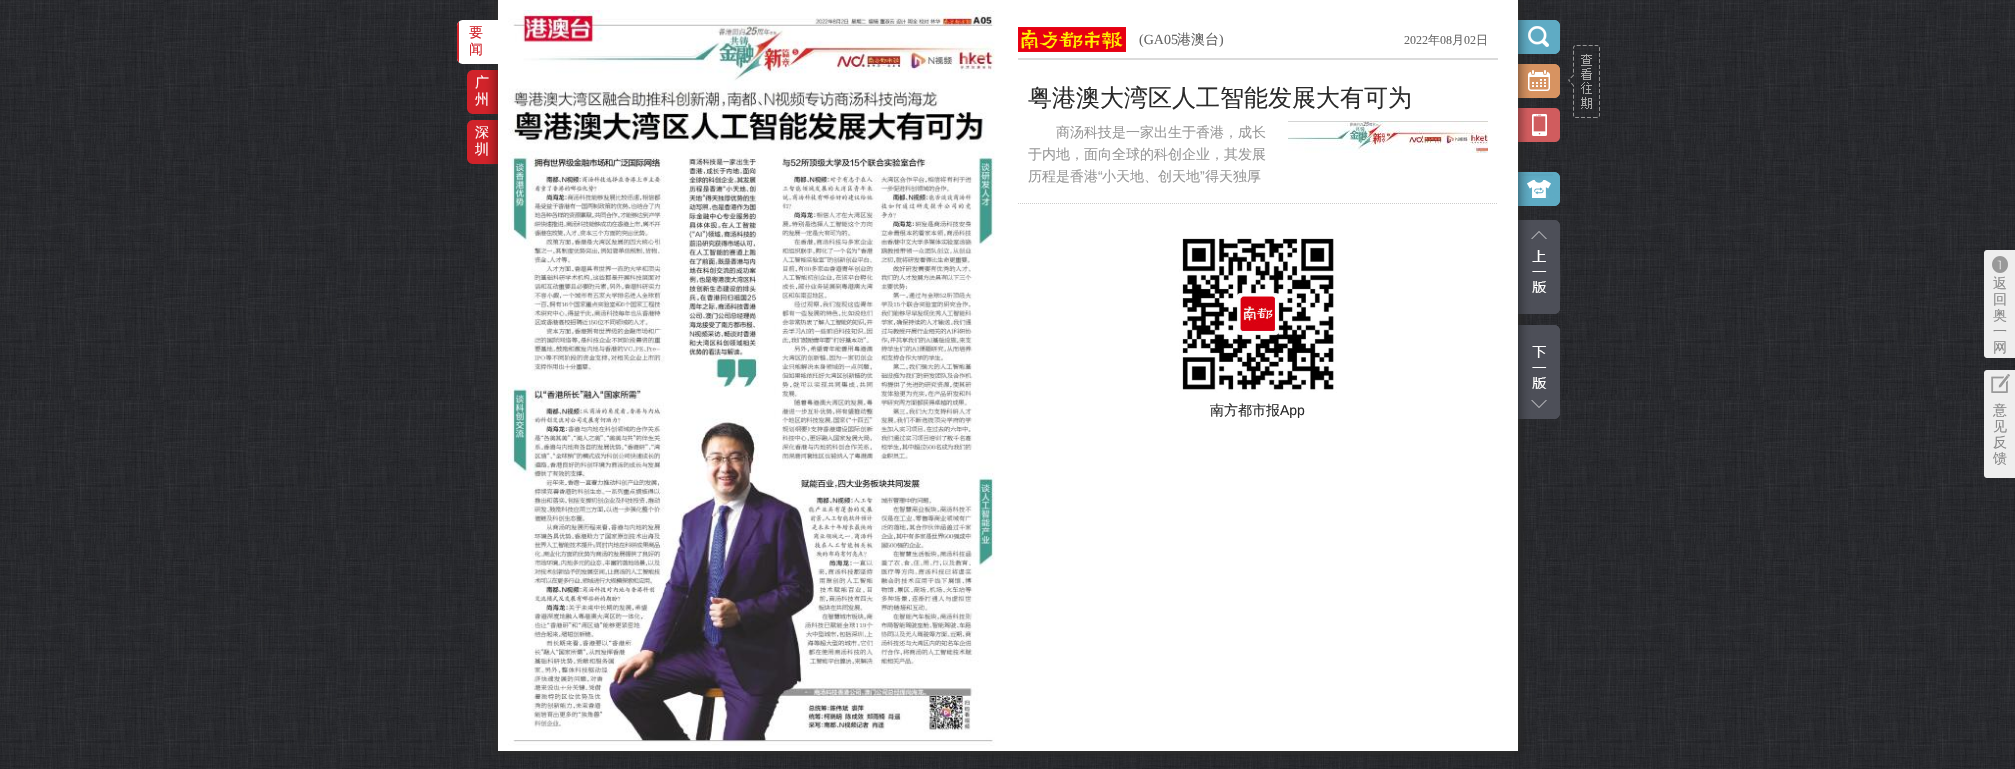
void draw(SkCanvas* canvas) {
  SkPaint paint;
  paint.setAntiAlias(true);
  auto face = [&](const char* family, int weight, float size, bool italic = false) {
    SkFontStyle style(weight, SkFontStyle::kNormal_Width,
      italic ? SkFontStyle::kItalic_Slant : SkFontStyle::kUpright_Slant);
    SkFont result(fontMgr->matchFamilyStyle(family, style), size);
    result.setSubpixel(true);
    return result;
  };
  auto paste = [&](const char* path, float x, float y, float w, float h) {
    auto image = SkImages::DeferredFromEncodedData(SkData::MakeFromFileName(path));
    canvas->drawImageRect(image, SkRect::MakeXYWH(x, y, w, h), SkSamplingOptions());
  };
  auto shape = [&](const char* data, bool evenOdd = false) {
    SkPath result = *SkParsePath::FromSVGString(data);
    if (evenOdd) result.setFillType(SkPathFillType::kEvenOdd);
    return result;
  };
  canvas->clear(0xffffffff);
  paste("img/1.png", 0, 0, 2015, 769);
  paint.setColor(0xff111111);
  paint.setMaskFilter(SkMaskFilter::MakeBlur(kNormal_SkBlurStyle, 4));
  canvas->drawRect(SkRect::MakeXYWH(499, -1, 1020, 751), paint);
  paint.setMaskFilter(nullptr);
  paint.setMaskFilter(SkMaskFilter::MakeBlur(kNormal_SkBlurStyle, 4));
  canvas->drawRect(SkRect::MakeXYWH(499, 1, 1020, 751), paint);
  paint.setMaskFilter(nullptr);
  paint.setColor(0xff333333);
  paint.setMaskFilter(SkMaskFilter::MakeBlur(kNormal_SkBlurStyle, 5));
  canvas->drawRect(SkRect::MakeXYWH(499, -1, 1020, 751), paint);
  paint.setMaskFilter(nullptr);
  paint.setMaskFilter(SkMaskFilter::MakeBlur(kNormal_SkBlurStyle, 4));
  canvas->drawRect(SkRect::MakeXYWH(497, 1, 1020, 751), paint);
  paint.setMaskFilter(nullptr);
  paste("img/2.png", 457, 20, 41, 44);
  paste("img/3.png", 467, 70, 31, 44);
  paste("img/4.png", 467, 120, 31, 44);
  paint.setColor(0xffffffff);
  canvas->drawRect(SkRect::MakeXYWH(498, 0, 1020, 751), paint);
  paste("img/5.png", 508, 10, 487, 736);
  paint.setColor(0xffdbdbdb);
  canvas->drawRect(SkRect::MakeXYWH(1018, 58, 480, 2), paint);
  paste("img/6.png", 1018, 27, 108, 25);
  paint.setStroke(true);
  paint.setStrokeWidth(1);
  paint.setColor(0xffcccccc);
  paint.setPathEffect(SkDashPathEffect::Make({{1, 1}}, 0));
  canvas->drawPath(shape("M1018 203.5H1498"), paint);
  paint.setPathEffect(nullptr);
  paste("img/7.png", 1288, 121, 200, 32);
  paste("img/8.png", 1179, 234, 158, 159);
  paste("img/9.png", 1518, 20, 42, 34);
  paste("img/10.png", 1518, 64, 42, 34);
  paste("img/11.png", 1568, 45, 32, 73);
  paste("img/12.png", 1518, 108, 42, 34);
  paste("img/13.png", 1518, 172, 42, 34);
  paste("img/14.png", 1518, 220, 42, 94);
  paste("img/15.png", 1518, 325, 42, 94);
  paste("img/16.png", 1984, 250, 31, 108);
  paste("img/17.png", 1984, 370, 31, 108);
  auto f0 = face("WenQuanYi Zen Hei", 500, 14);
  paint.setStroke(false);
  paint.setColor(0xffd1232a);
  canvas->drawString("要", 469, 37, f0, paint);
  canvas->drawString("闻", 469, 54, f0, paint);
  paint.setColor(0xffffffff);
  {
    const struct { const char* s; float x, y; } items[] = {
      {"广", 475, 87},
      {"州", 475, 104},
      {"深", 475, 137},
      {"圳", 475, 154},
    };
    for (auto [s, x, y] : items) {
      canvas->drawString(s, x, y, f0, paint);
    }
  }
  auto f1 = face("Liberation Serif", 400, 14);
  paint.setColor(0xff666666);
  canvas->drawString("(GA05", 1139, 44, f1, paint);
  canvas->drawString("港澳台", 1177, 44, f0, paint);
  canvas->drawString(")", 1219, 44, f1, paint);
  auto f2 = face("Liberation Serif", 400, 12);
  canvas->drawString("2022", 1404, 44, f2, paint);
  auto f3 = face("WenQuanYi Zen Hei", 500, 12);
  canvas->drawString("年", 1428, 44, f3, paint);
  canvas->drawString("08", 1440, 44, f2, paint);
  canvas->drawString("月", 1452, 44, f3, paint);
  canvas->drawString("02", 1464, 44, f2, paint);
  canvas->drawString("日", 1476, 44, f3, paint);
  auto f4 = face("WenQuanYi Zen Hei", 500, 24);
  paint.setColor(0xff2b2b2b);
  canvas->drawString("粤港澳大湾区人工智能发展大有可为", 1028, 106, f4, paint);
  paint.setColor(0xff999999);
  {
    const struct { const char* s; float x, y; } items[] = {
      {"商汤科技是一家出生于香港，成长", 1056, 137},
      {"于内地，面向全球的科创企业，其发展", 1028, 159},
      {"历程是香港", 1028, 181},
    };
    for (auto [s, x, y] : items) {
      canvas->drawString(s, x, y, f0, paint);
    }
  }
  auto f5 = face("Liberation Sans", 400, 14);
  canvas->drawString("“", 1098, 181, f5, paint);
  canvas->drawString("小天地、创天地", 1102, 181, f0, paint);
  canvas->drawString("”", 1200, 181, f5, paint);
  canvas->drawString("得天独厚", 1205, 181, f0, paint);
  paint.setColor(0xff2b2b2b);
  canvas->drawString("南方都市报", 1210, 415, f0, paint);
  canvas->drawString("App", 1280, 415, f5, paint);
  paint.setColor(0xff888888);
  {
    const struct { const char* s; float x, y; } items[] = {
      {"返", 1993, 288},
      {"回", 1993, 304},
      {"奥", 1993, 320},
      {"一", 1993, 336},
      {"网", 1993, 352},
      {"意", 1993, 415},
      {"见", 1993, 431},
      {"反", 1993, 447},
      {"馈", 1993, 463},
    };
    for (auto [s, x, y] : items) {
      canvas->drawString(s, x, y, f0, paint);
    }
  }
}
